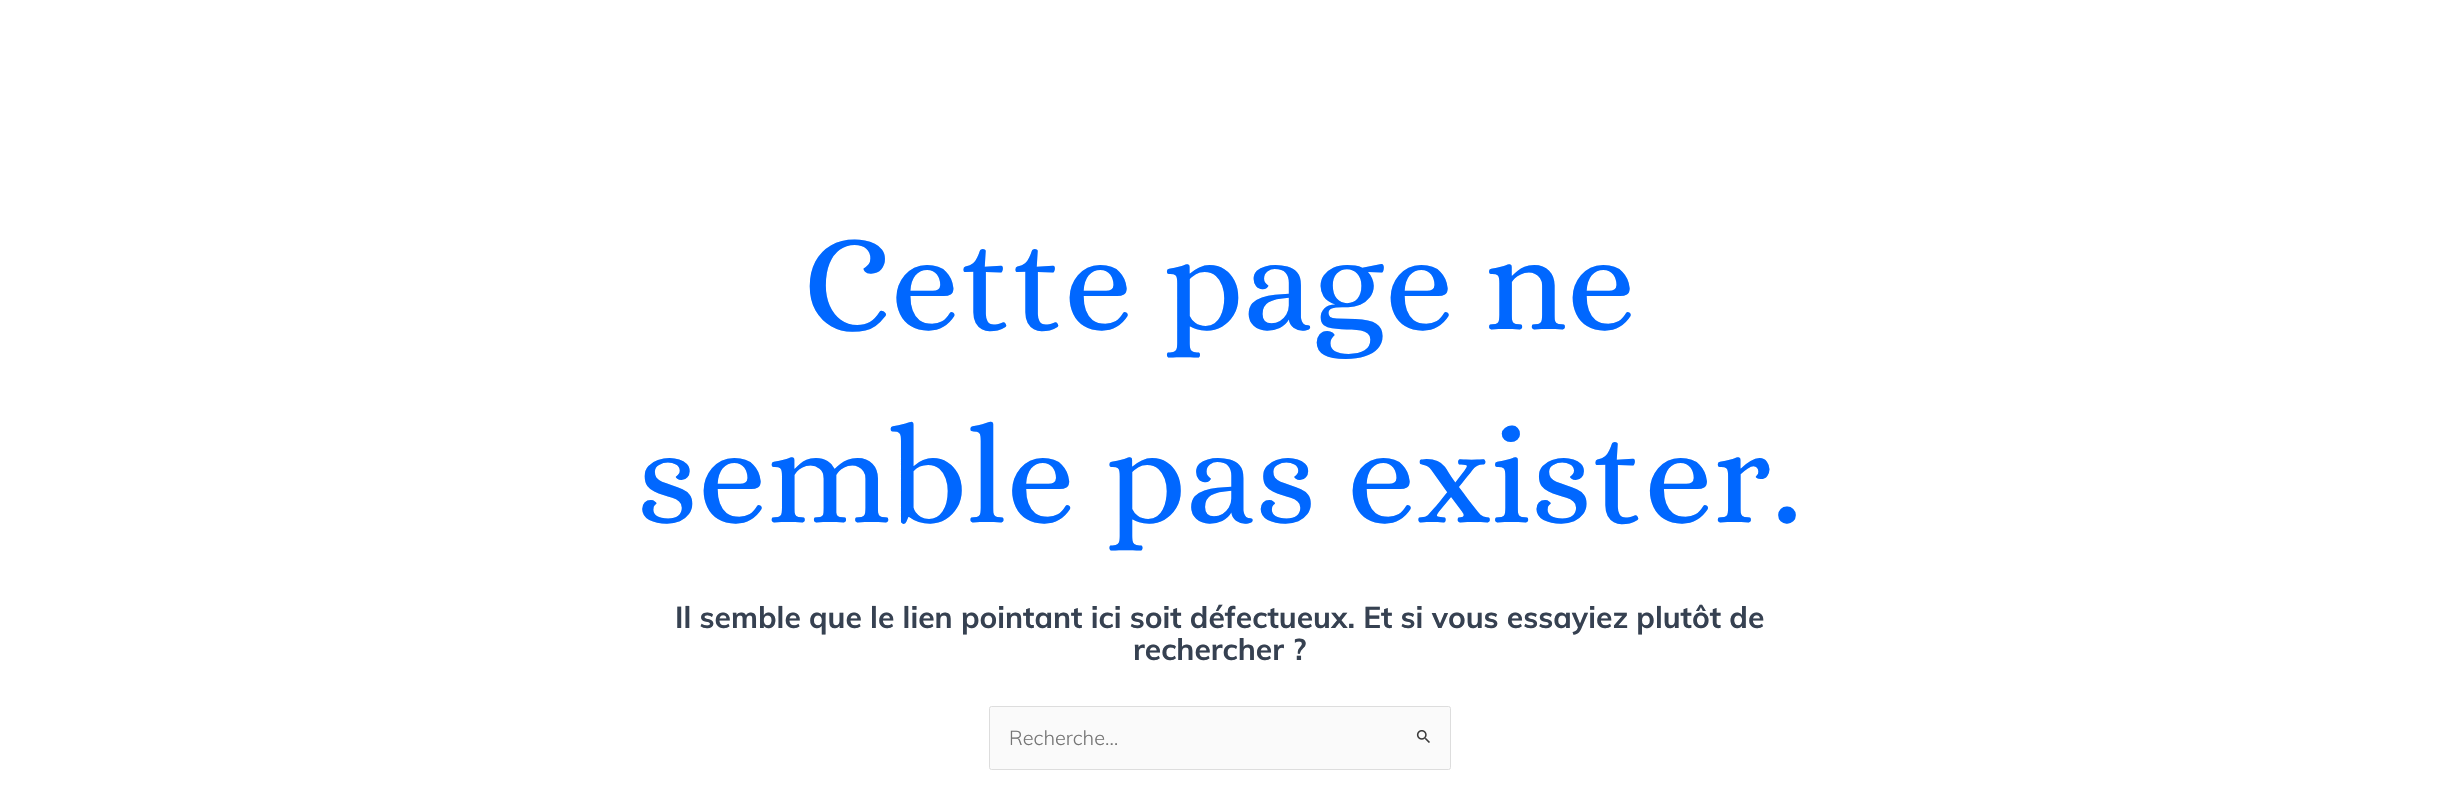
void draw(SkCanvas* canvas) {
  SkPaint paint;
  paint.setAntiAlias(true);
  auto face = [&](const char* family, int weight, float size, bool italic = false) {
    SkFontStyle style(weight, SkFontStyle::kNormal_Width,
      italic ? SkFontStyle::kItalic_Slant : SkFontStyle::kUpright_Slant);
    SkFont result(fontMgr->matchFamilyStyle(family, style), size);
    result.setSubpixel(true);
    return result;
  };
  auto paste = [&](const char* path, float x, float y, float w, float h) {
    auto image = SkImages::DeferredFromEncodedData(SkData::MakeFromFileName(path));
    canvas->drawImageRect(image, SkRect::MakeXYWH(x, y, w, h), SkSamplingOptions());
  };
  canvas->clear(0xffffffff);
  paint.setColor(0xfffafafa);
  canvas->drawRoundRect(SkRect::MakeXYWH(989.5f, 706.5f, 461, 63), 2, 2, paint);
  paint.setStroke(true);
  paint.setStrokeWidth(1);
  paint.setColor(0xffdddddd);
  canvas->drawRoundRect(SkRect::MakeXYWH(989.5f, 706.5f, 461, 63), 2, 2, paint);
  paste("img/1.png", 1416, 730, 14, 13);
  auto f0 = face("Alice", 400, 137.5f);
  paint.setStroke(false);
  paint.setColor(0xff0067ff);
  canvas->drawString("Cette page ne", 803, 329, f0, paint);
  canvas->drawString("semble pas exister.", 637, 522, f0, paint);
  auto f1 = face("Muli", 700, 30);
  paint.setColor(0xff364151);
  canvas->drawString("Il semble que le lien pointant ici soit défectueux. Et si vous essayiez plutôt de", 675, 628, f1, paint);
  canvas->drawString("rechercher ?", 1133, 660, f1, paint);
  auto f2 = face("Muli", 300, 20);
  paint.setColor(0xff757575);
  canvas->drawString("Recherche…", 1009, 745, f2, paint);
}
